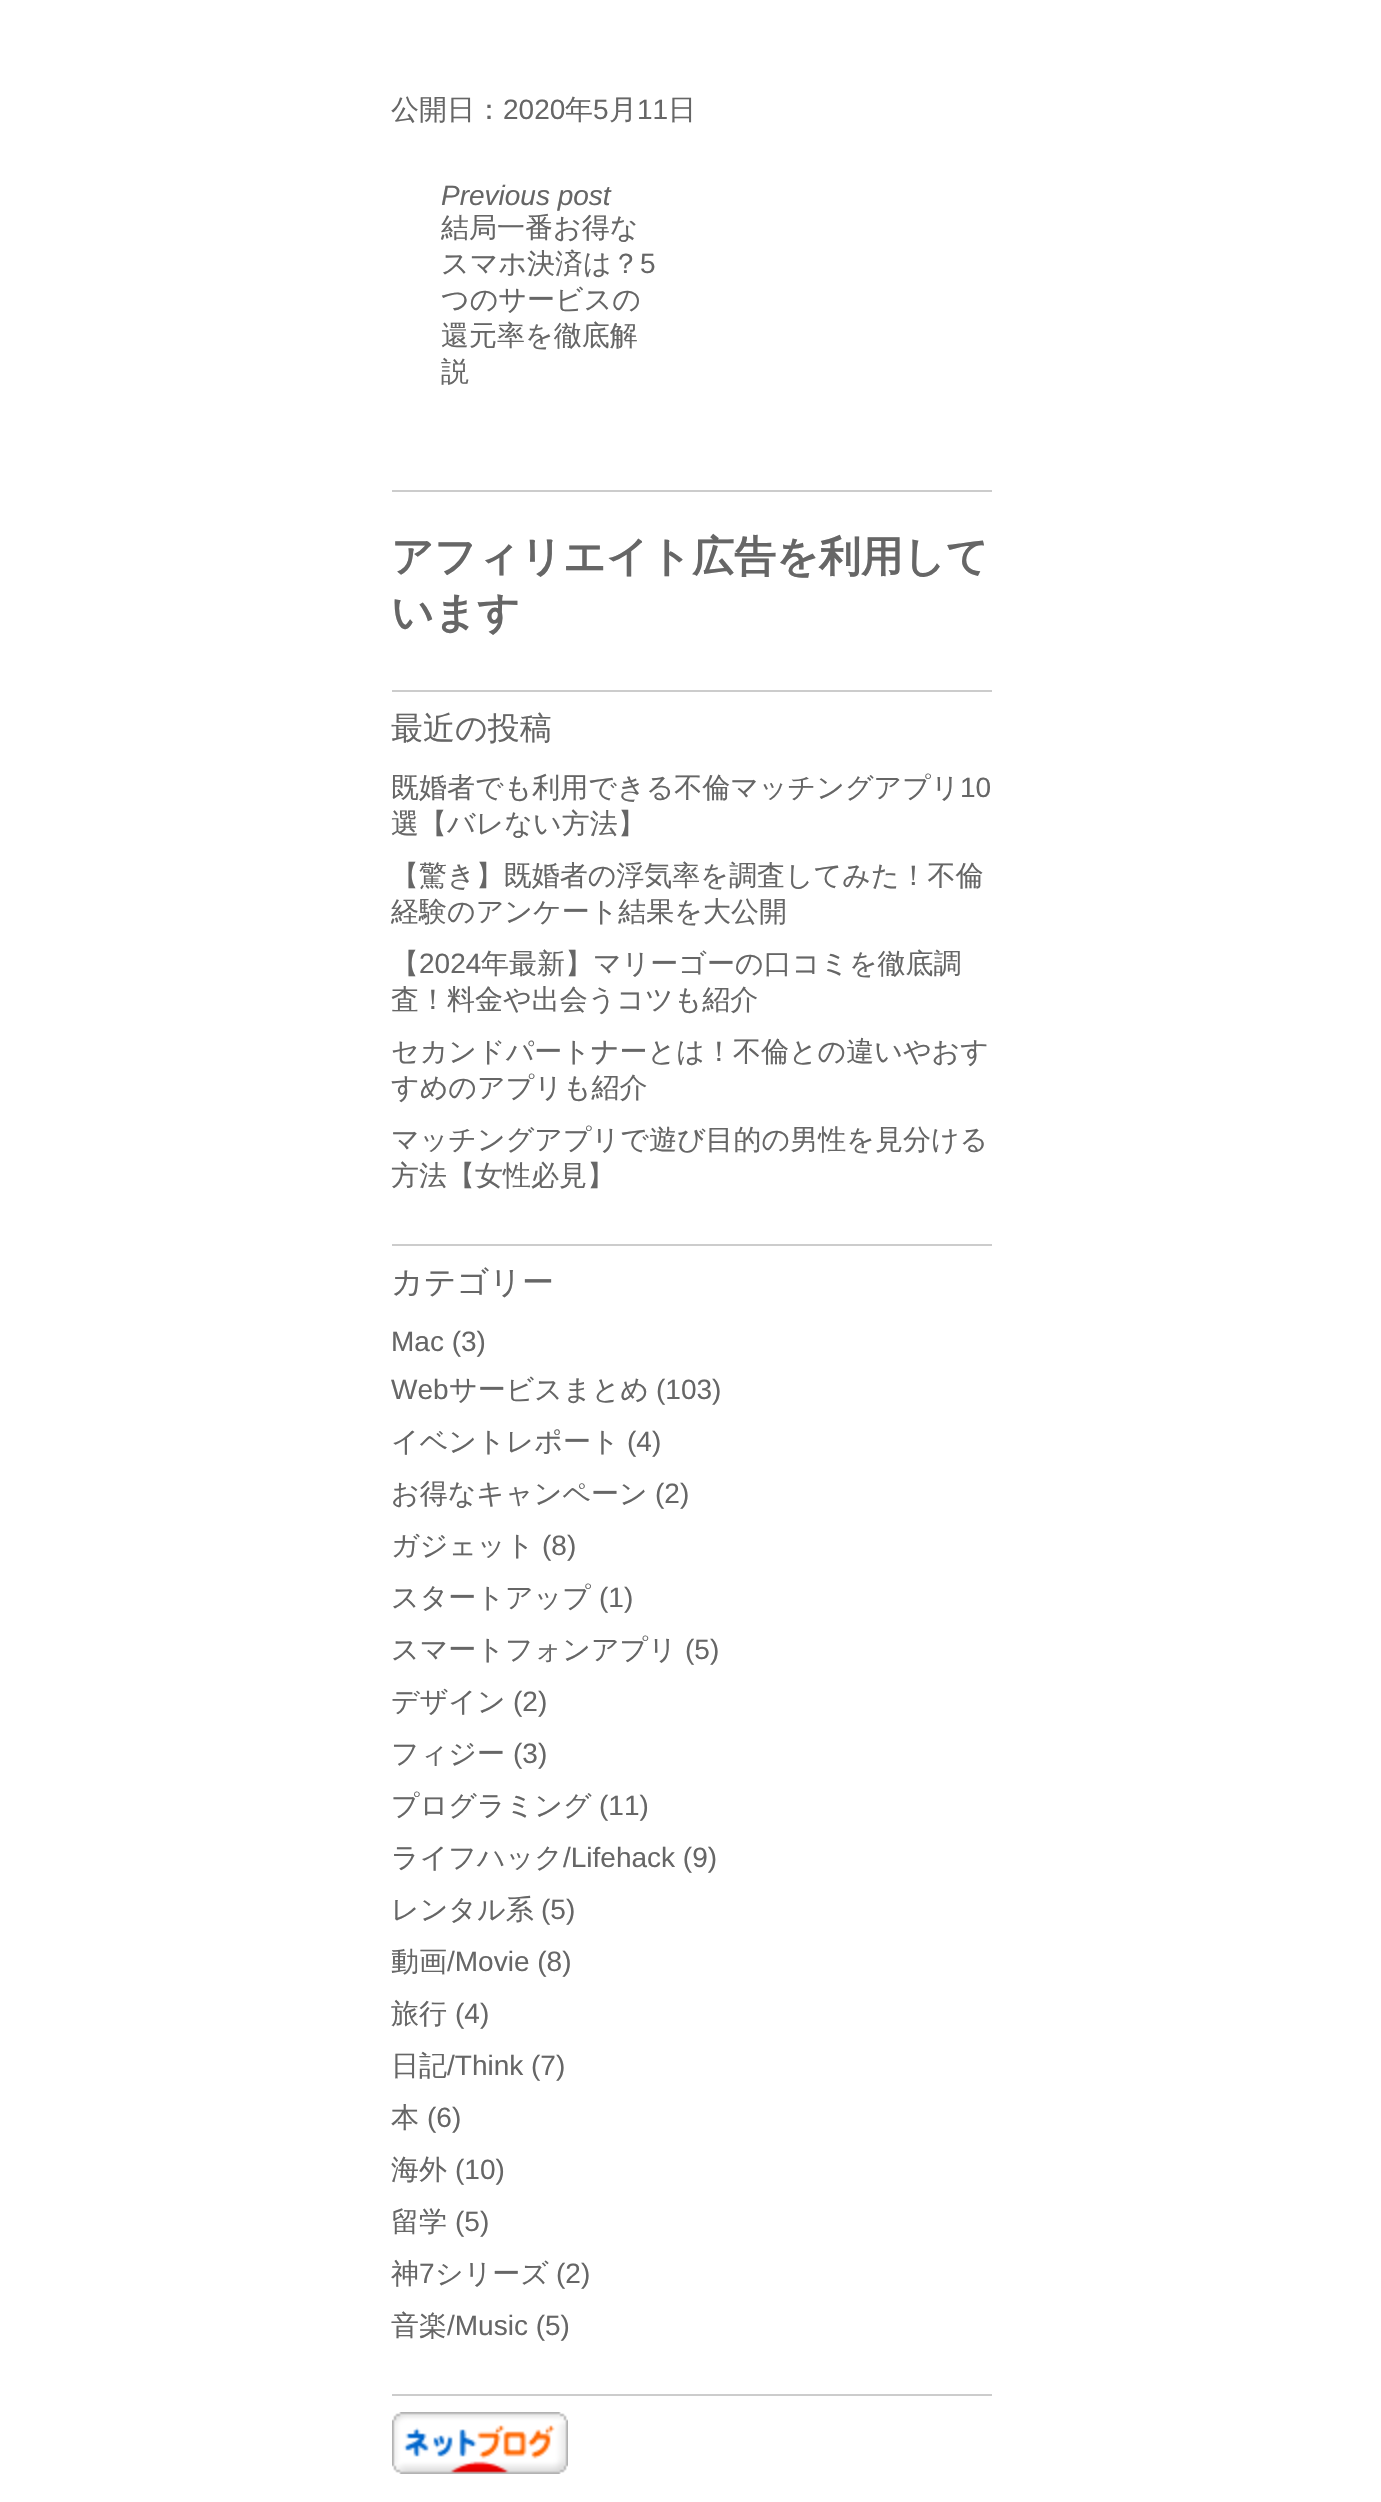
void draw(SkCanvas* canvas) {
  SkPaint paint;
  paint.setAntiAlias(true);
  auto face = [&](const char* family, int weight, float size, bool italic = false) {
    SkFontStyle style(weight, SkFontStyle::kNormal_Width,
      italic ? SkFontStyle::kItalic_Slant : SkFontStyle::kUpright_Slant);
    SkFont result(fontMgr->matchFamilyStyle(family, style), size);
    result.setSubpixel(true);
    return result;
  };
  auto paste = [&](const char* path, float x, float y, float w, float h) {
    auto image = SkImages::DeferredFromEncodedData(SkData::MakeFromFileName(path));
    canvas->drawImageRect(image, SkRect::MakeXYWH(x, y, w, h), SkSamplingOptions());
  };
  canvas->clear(0xffffffff);
  {
    const struct { float x, y, w, h; SkColor color; } items[] = {
      {392, 490, 600, 2, 0xffcccccc},
      {392, 690, 600, 2, 0xffcccccc},
      {392, 1244, 600, 2, 0xffcccccc},
      {392, 2394, 600, 2, 0xffcccccc},
    };
    for (auto [x, y, w, h, color] : items) {
      paint.setColor(color);
      canvas->drawRect(SkRect::MakeXYWH(x, y, w, h), paint);
    }
  }
  paste("img/1.png", 392, 2412, 176, 62);
  auto f0 = face("WenQuanYi Zen Hei", 500, 28);
  paint.setColor(0xff666666);
  canvas->drawString("公開日：", 391, 119, f0, paint);
  auto f1 = face("Liberation Sans", 400, 28);
  canvas->drawString("2020", 503, 119, f1, paint);
  canvas->drawString("年", 565, 119, f0, paint);
  canvas->drawString("5", 593, 119, f1, paint);
  canvas->drawString("月", 609, 119, f0, paint);
  canvas->drawString("11", 637, 119, f1, paint);
  canvas->drawString("日", 668, 119, f0, paint);
  auto f2 = face("Liberation Sans", 400, 28, true);
  canvas->drawString("Previous post", 441, 205, f2, paint);
  canvas->drawString("結局一番お得な", 441, 237, f0, paint);
  canvas->drawString("スマホ決済は？", 441, 273, f0, paint);
  canvas->drawString("5", 640, 273, f1, paint);
  {
    const struct { const char* s; float x, y; } items[] = {
      {"つのサービスの", 441, 309},
      {"還元率を徹底解", 441, 345},
      {"説", 441, 381},
    };
    for (auto [s, x, y] : items) {
      canvas->drawString(s, x, y, f0, paint);
    }
  }
  auto f3 = face("WenQuanYi Zen Hei", 700, 42);
  canvas->drawString("アフィリエイト広告を利用して", 391, 571, f3, paint);
  canvas->drawString("います", 391, 627, f3, paint);
  auto f4 = face("WenQuanYi Zen Hei", 500, 32);
  canvas->drawString("最近の投稿", 391, 739, f4, paint);
  canvas->drawString("既婚者でも利用できる不倫マッチングアプリ", 391, 797, f0, paint);
  canvas->drawString("10", 960, 797, f1, paint);
  {
    const struct { const char* s; float x, y; } items[] = {
      {"選【バレない方法】", 391, 833},
      {"【驚き】既婚者の浮気率を調査してみた！不倫", 391, 885},
      {"経験のアンケート結果を大公開", 391, 921},
      {"【", 391, 973},
    };
    for (auto [s, x, y] : items) {
      canvas->drawString(s, x, y, f0, paint);
    }
  }
  canvas->drawString("2024", 419, 973, f1, paint);
  {
    const struct { const char* s; float x, y; } items[] = {
      {"年最新】マリーゴーの口コミを徹底調", 481, 973},
      {"査！料金や出会うコツも紹介", 391, 1009},
      {"セカンドパートナーとは！不倫との違いやおす", 391, 1061},
      {"すめのアプリも紹介", 391, 1097},
      {"マッチングアプリで遊び目的の男性を見分ける", 391, 1149},
      {"方法【女性必見】", 391, 1185},
    };
    for (auto [s, x, y] : items) {
      canvas->drawString(s, x, y, f0, paint);
    }
  }
  canvas->drawString("カテゴリー", 391, 1293, f4, paint);
  canvas->drawString("Mac (3)", 391, 1351, f1, paint);
  canvas->drawString("Web", 391, 1399, f1, paint);
  canvas->drawString("サービスまとめ", 449, 1399, f0, paint);
  canvas->drawString("(103)", 656, 1399, f1, paint);
  canvas->drawString("イベントレポート", 391, 1451, f0, paint);
  canvas->drawString("(4)", 627, 1451, f1, paint);
  canvas->drawString("お得なキャンペーン", 391, 1503, f0, paint);
  canvas->drawString("(2)", 655, 1503, f1, paint);
  canvas->drawString("ガジェット", 391, 1555, f0, paint);
  canvas->drawString("(8)", 542, 1555, f1, paint);
  canvas->drawString("スタートアップ", 391, 1607, f0, paint);
  canvas->drawString("(1)", 599, 1607, f1, paint);
  canvas->drawString("スマートフォンアプリ", 391, 1659, f0, paint);
  canvas->drawString("(5)", 685, 1659, f1, paint);
  canvas->drawString("デザイン", 391, 1711, f0, paint);
  canvas->drawString("(2)", 513, 1711, f1, paint);
  canvas->drawString("フィジー", 391, 1763, f0, paint);
  canvas->drawString("(3)", 513, 1763, f1, paint);
  canvas->drawString("プログラミング", 391, 1815, f0, paint);
  canvas->drawString("(11)", 599, 1815, f1, paint);
  canvas->drawString("ライフハック", 391, 1867, f0, paint);
  canvas->drawString("/Lifehack (9)", 563, 1867, f1, paint);
  canvas->drawString("レンタル系", 391, 1919, f0, paint);
  canvas->drawString("(5)", 541, 1919, f1, paint);
  canvas->drawString("動画", 391, 1971, f0, paint);
  canvas->drawString("/Movie (8)", 447, 1971, f1, paint);
  canvas->drawString("旅行", 391, 2023, f0, paint);
  canvas->drawString("(4)", 455, 2023, f1, paint);
  canvas->drawString("日記", 391, 2075, f0, paint);
  canvas->drawString("/Think (7)", 447, 2075, f1, paint);
  canvas->drawString("本", 391, 2127, f0, paint);
  canvas->drawString("(6)", 427, 2127, f1, paint);
  canvas->drawString("海外", 391, 2179, f0, paint);
  canvas->drawString("(10)", 455, 2179, f1, paint);
  canvas->drawString("留学", 391, 2231, f0, paint);
  canvas->drawString("(5)", 455, 2231, f1, paint);
  canvas->drawString("神", 391, 2283, f0, paint);
  canvas->drawString("7", 419, 2283, f1, paint);
  canvas->drawString("シリーズ", 435, 2283, f0, paint);
  canvas->drawString("(2)", 556, 2283, f1, paint);
  canvas->drawString("音楽", 391, 2335, f0, paint);
  canvas->drawString("/Music (5)", 447, 2335, f1, paint);
}
